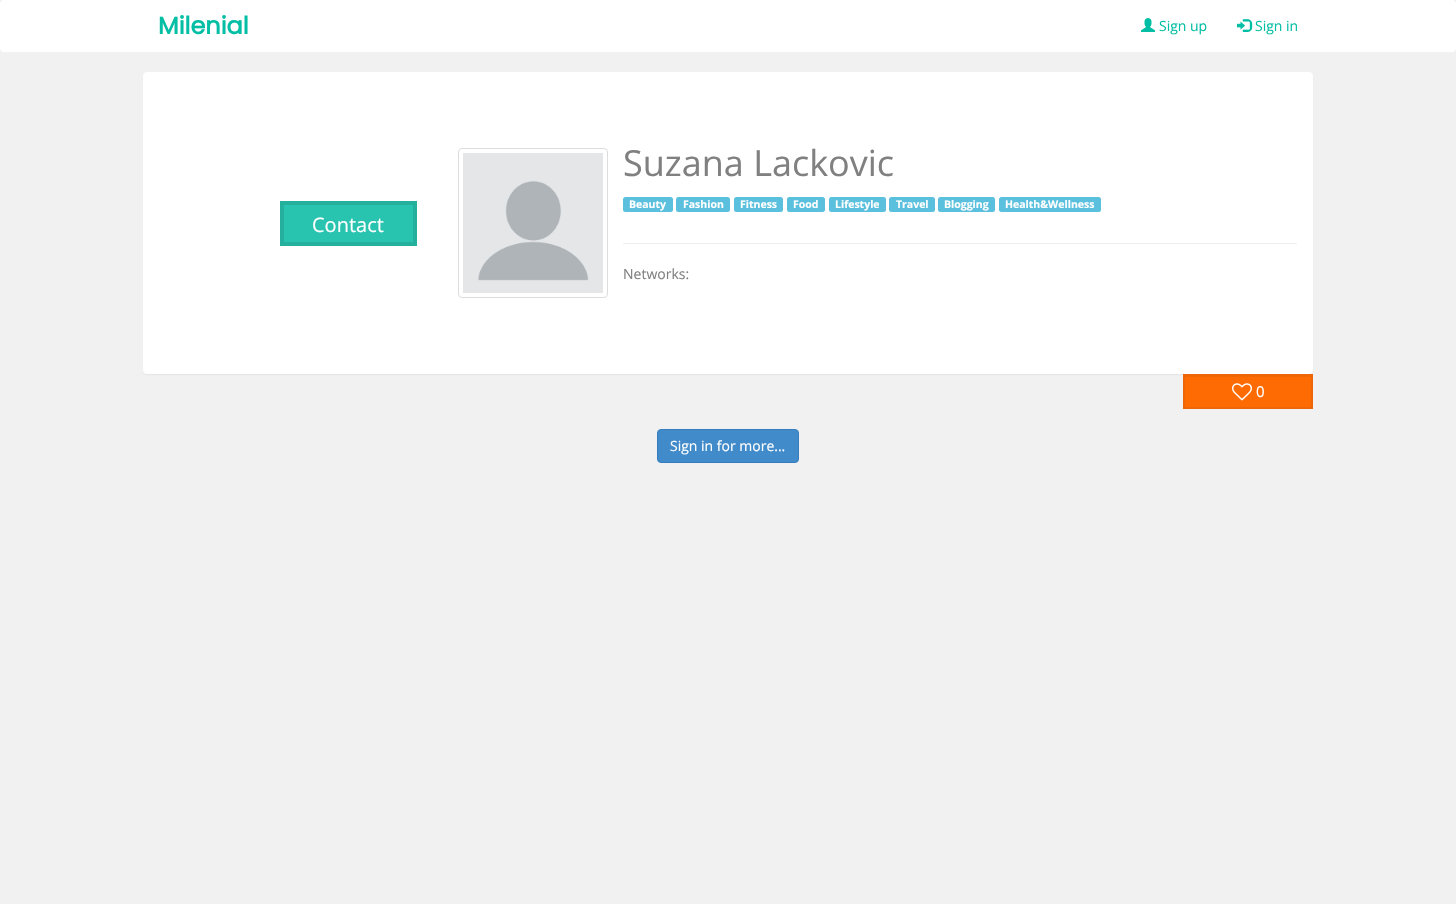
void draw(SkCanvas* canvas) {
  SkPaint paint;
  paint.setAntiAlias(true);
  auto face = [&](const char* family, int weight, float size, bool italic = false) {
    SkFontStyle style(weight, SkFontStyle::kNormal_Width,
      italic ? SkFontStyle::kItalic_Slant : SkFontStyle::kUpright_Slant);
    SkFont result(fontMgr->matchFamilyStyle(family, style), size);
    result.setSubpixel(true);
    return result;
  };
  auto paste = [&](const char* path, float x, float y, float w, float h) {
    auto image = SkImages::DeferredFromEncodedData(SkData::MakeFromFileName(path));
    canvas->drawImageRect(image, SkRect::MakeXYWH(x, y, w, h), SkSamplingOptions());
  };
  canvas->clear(0xfff1f1f1);
  paint.setColor(0xffffffff);
  canvas->drawRoundRect(SkRect::MakeXYWH(0, 0, 1456, 52), 4, 4, paint);
  paste("img/1.png", 1141, 18, 14, 14);
  paste("img/2.png", 1237, 19, 16, 13);
  paint.setColor(0x0d000000);
  paint.setMaskFilter(SkMaskFilter::MakeBlur(kNormal_SkBlurStyle, 0.5f));
  canvas->drawRoundRect(SkRect::MakeXYWH(143, 73, 1170, 302), 4, 4, paint);
  paint.setMaskFilter(nullptr);
  paint.setColor(0xffffffff);
  canvas->drawRoundRect(SkRect::MakeXYWH(143, 72, 1170, 302), 4, 4, paint);
  paint.setColor(0xff29c4af);
  canvas->drawRect(SkRect::MakeXYWH(282, 203, 133, 41), paint);
  paint.setStroke(true);
  paint.setStrokeWidth(4);
  paint.setColor(0xff24b09d);
  canvas->drawRect(SkRect::MakeXYWH(282, 203, 133, 41), paint);
  paint.setStrokeWidth(1);
  paint.setColor(0xffdddddd);
  canvas->drawRoundRect(SkRect::MakeXYWH(458.5f, 148.5f, 149, 149), 3.5f, 3.5f, paint);
  paste("img/3.png", 463, 153, 140, 140);
  paint.setStroke(false);
  paint.setColor(0xff5bc0de);
  canvas->drawRoundRect(SkRect::MakeXYWH(623, 197, 50, 15), 2.5f, 2.5f, paint);
  canvas->drawRoundRect(SkRect::MakeXYWH(676, 197, 54, 15), 2.5f, 2.5f, paint);
  canvas->drawRoundRect(SkRect::MakeXYWH(734, 197, 49, 15), 2.5f, 2.5f, paint);
  canvas->drawRoundRect(SkRect::MakeXYWH(787, 197, 38, 15), 2.5f, 2.5f, paint);
  canvas->drawRoundRect(SkRect::MakeXYWH(829, 197, 57, 15), 2.5f, 2.5f, paint);
  canvas->drawRoundRect(SkRect::MakeXYWH(889, 197, 46, 15), 2.5f, 2.5f, paint);
  canvas->drawRoundRect(SkRect::MakeXYWH(938, 197, 57, 15), 2.5f, 2.5f, paint);
  canvas->drawRoundRect(SkRect::MakeXYWH(999, 197, 102, 15), 2.5f, 2.5f, paint);
  {
    const struct { float x, y, w, h; SkColor color; } items[] = {
      {623, 243, 674, 1, 0xffeeeeee},
      {1185, 377, 126, 30, 0xffff6b03},
      {1185, 376, 126, 1, 0xfff26603},
    };
    for (auto [x, y, w, h, color] : items) {
      paint.setColor(color);
      canvas->drawRect(SkRect::MakeXYWH(x, y, w, h), paint);
    }
  }
  paint.setStroke(true);
  paint.setStrokeWidth(2);
  paint.setColor(0xffed6607);
  canvas->drawRect(SkRect::MakeXYWH(1184, 375, 128, 33), paint);
  paste("img/4.png", 1232, 383, 20, 18);
  paint.setStroke(false);
  paint.setColor(0xff428bca);
  canvas->drawRoundRect(SkRect::MakeXYWH(657.5f, 429.5f, 141, 33), 3.5f, 3.5f, paint);
  paint.setStroke(true);
  paint.setStrokeWidth(1);
  paint.setColor(0xff357ebd);
  canvas->drawRoundRect(SkRect::MakeXYWH(657.5f, 429.5f, 141, 33), 3.5f, 3.5f, paint);
  auto f0 = face("Poppins", 700, 24);
  paint.setStroke(false);
  paint.setColor(0xff02bea4);
  canvas->drawString("Milenial", 158, 34, f0, paint);
  auto f1 = face("Open Sans", 400, 14);
  canvas->drawString("Sign up", 1159, 31, f1, paint);
  canvas->drawString("Sign in", 1255, 31, f1, paint);
  auto f2 = face("Open Sans", 400, 20);
  paint.setColor(0xffffffff);
  canvas->drawString("Contact", 312, 232, f2, paint);
  auto f3 = face("Open Sans", 400, 36);
  paint.setColor(0xff808080);
  canvas->drawString("Suzana Lackovic", 623, 176, f3, paint);
  auto f4 = face("Open Sans", 700, 10.5f);
  paint.setColor(0xffffffff);
  {
    const struct { const char* s; float x, y; } items[] = {
      {"Beauty", 629, 208},
      {"Fashion", 683, 208},
      {"Fitness", 740, 208},
      {"Food", 793, 208},
      {"Lifestyle", 835, 208},
      {"Travel", 896, 208},
      {"Blogging", 944, 208},
      {"Health&Wellness", 1005, 208},
    };
    for (auto [s, x, y] : items) {
      canvas->drawString(s, x, y, f4, paint);
    }
  }
  paint.setColor(0xff808080);
  canvas->drawString("Networks:", 623, 279, f1, paint);
  auto f5 = face("Open Sans", 400, 15);
  paint.setColor(0xffffffff);
  canvas->drawString("0", 1256, 397, f5, paint);
  canvas->drawString("Sign in for more...", 670, 451, f1, paint);
}
